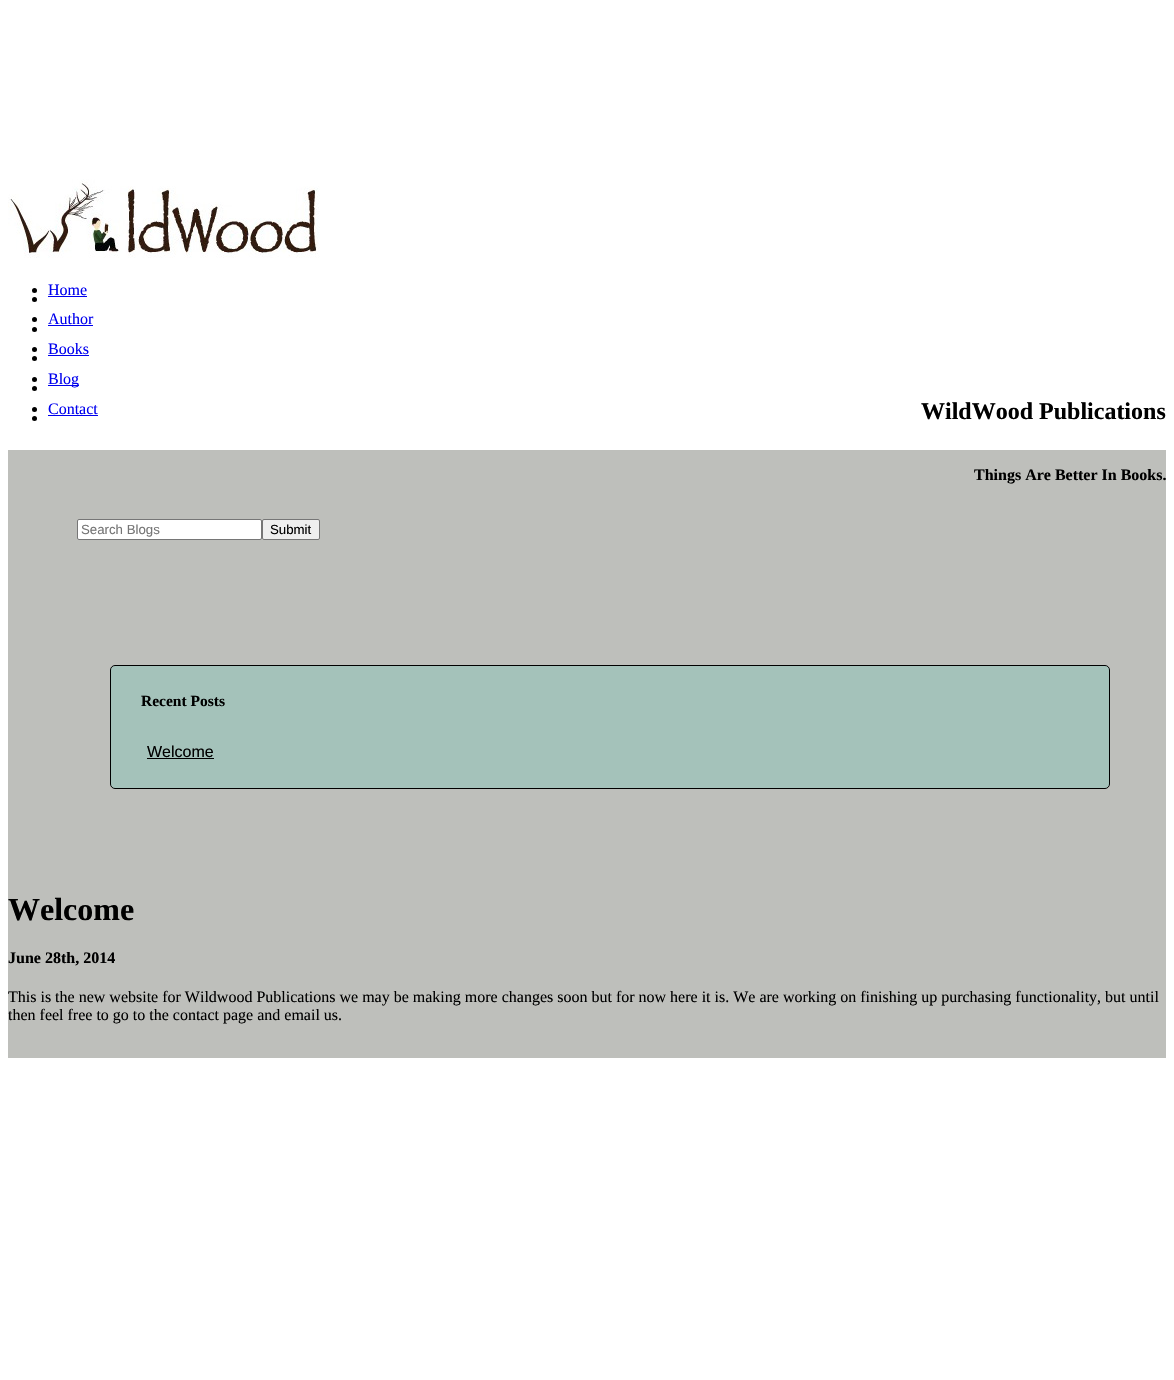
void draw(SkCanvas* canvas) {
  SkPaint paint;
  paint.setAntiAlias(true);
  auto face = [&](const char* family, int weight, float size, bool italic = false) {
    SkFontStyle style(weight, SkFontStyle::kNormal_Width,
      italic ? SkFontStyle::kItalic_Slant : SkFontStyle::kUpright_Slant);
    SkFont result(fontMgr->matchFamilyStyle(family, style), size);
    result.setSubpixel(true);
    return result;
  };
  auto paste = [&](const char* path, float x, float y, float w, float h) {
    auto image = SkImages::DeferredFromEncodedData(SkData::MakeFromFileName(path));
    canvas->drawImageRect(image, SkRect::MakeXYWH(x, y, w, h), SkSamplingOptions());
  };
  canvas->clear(0xffffffff);
  paint.setColor(0xff000000);
  canvas->drawCircle(34.5f, 290.5f, 2.5f, paint);
  paint.setColor(0xff0000ee);
  canvas->drawRect(SkRect::MakeXYWH(48, 296, 39, 1), paint);
  paint.setColor(0xff000000);
  canvas->drawCircle(34.5f, 299.5f, 2.5f, paint);
  canvas->drawCircle(34.5f, 319.5f, 2.5f, paint);
  paint.setColor(0xff0000ee);
  canvas->drawRect(SkRect::MakeXYWH(48, 325, 45, 1), paint);
  paint.setColor(0xff000000);
  canvas->drawCircle(34.5f, 329.5f, 2.5f, paint);
  canvas->drawCircle(34.5f, 349.5f, 2.5f, paint);
  paint.setColor(0xff0000ee);
  canvas->drawRect(SkRect::MakeXYWH(48, 355, 41, 1), paint);
  paint.setColor(0xff000000);
  canvas->drawCircle(34.5f, 358.5f, 2.5f, paint);
  canvas->drawCircle(34.5f, 379.5f, 2.5f, paint);
  paint.setColor(0xff0000ee);
  canvas->drawRect(SkRect::MakeXYWH(48, 385, 31, 1), paint);
  paint.setColor(0xff000000);
  canvas->drawCircle(34.5f, 388.5f, 2.5f, paint);
  canvas->drawCircle(34.5f, 409.5f, 2.5f, paint);
  paint.setColor(0xff0000ee);
  canvas->drawRect(SkRect::MakeXYWH(48, 415, 50, 1), paint);
  paint.setColor(0xff000000);
  canvas->drawCircle(34.5f, 418.5f, 2.5f, paint);
  paint.setColor(0xffbebfbb);
  canvas->drawRect(SkRect::MakeXYWH(8, 450, 1158, 608), paint);
  paint.setColor(0xffffffff);
  canvas->drawRoundRect(SkRect::MakeXYWH(77.5f, 519.5f, 184, 20), 1.5f, 1.5f, paint);
  paint.setStroke(true);
  paint.setStrokeWidth(1);
  paint.setColor(0xff767676);
  canvas->drawRoundRect(SkRect::MakeXYWH(77.5f, 519.5f, 184, 20), 1.5f, 1.5f, paint);
  paint.setStroke(false);
  paint.setColor(0xffefefef);
  canvas->drawRoundRect(SkRect::MakeXYWH(262.5f, 519.5f, 57, 20), 1.5f, 1.5f, paint);
  paint.setStroke(true);
  paint.setColor(0xff767676);
  canvas->drawRoundRect(SkRect::MakeXYWH(262.5f, 519.5f, 57, 20), 1.5f, 1.5f, paint);
  paint.setStroke(false);
  paint.setColor(0xffa4c2ba);
  canvas->drawRoundRect(SkRect::MakeXYWH(110.5f, 665.5f, 999, 123), 4.5f, 4.5f, paint);
  paint.setStroke(true);
  paint.setColor(0xff000000);
  canvas->drawRoundRect(SkRect::MakeXYWH(110.5f, 665.5f, 999, 123), 4.5f, 4.5f, paint);
  paint.setStroke(false);
  canvas->drawRect(SkRect::MakeXYWH(147, 758, 67, 1), paint);
  paste("img/1.png", 8, 179, 312, 79);
  auto f0 = face("Liberation Serif", 400, 16);
  paint.setColor(0xff0000ee);
  {
    const struct { const char* s; float x, y; } items[] = {
      {"Home", 48, 295},
      {"Author", 48, 324},
      {"Books", 48, 354},
      {"Blog", 48, 384},
      {"Contact", 48, 414},
    };
    for (auto [s, x, y] : items) {
      canvas->drawString(s, x, y, f0, paint);
    }
  }
  auto f1 = face("Liberation Sans", 400, 13.25f);
  paint.setColor(0xff757575);
  canvas->drawString("Search Blogs", 81, 534, f1, paint);
  paint.setColor(0xff000000);
  canvas->drawString("Submit", 270, 534, f1, paint);
  auto f2 = face("Liberation Serif", 700, 15.5f);
  canvas->drawString("Recent Posts", 141, 706, f2, paint);
  auto f3 = face("Liberation Sans", 400, 16);
  canvas->drawString("Welcome", 147, 757, f3, paint);
  auto f4 = face("Liberation Serif", 700, 32);
  canvas->drawString("Welcome", 8, 920, f4, paint);
  auto f5 = face("Liberation Serif", 700, 16);
  canvas->drawString("June 28th, 2014", 8, 963, f5, paint);
  canvas->drawString("This is the new website for Wildwood Publications we may be making more changes soon but for now here it is. We are working on finishing up purchasing functionality, but until", 8, 1002, f0, paint);
  canvas->drawString("then feel free to go to the contact page and email us.", 8, 1020, f0, paint);
  auto f6 = face("Liberation Serif", 700, 24);
  canvas->drawString("WildWood Publications", 921, 419, f6, paint);
  canvas->drawString("Things Are Better In Books.", 974, 480, f5, paint);
}
